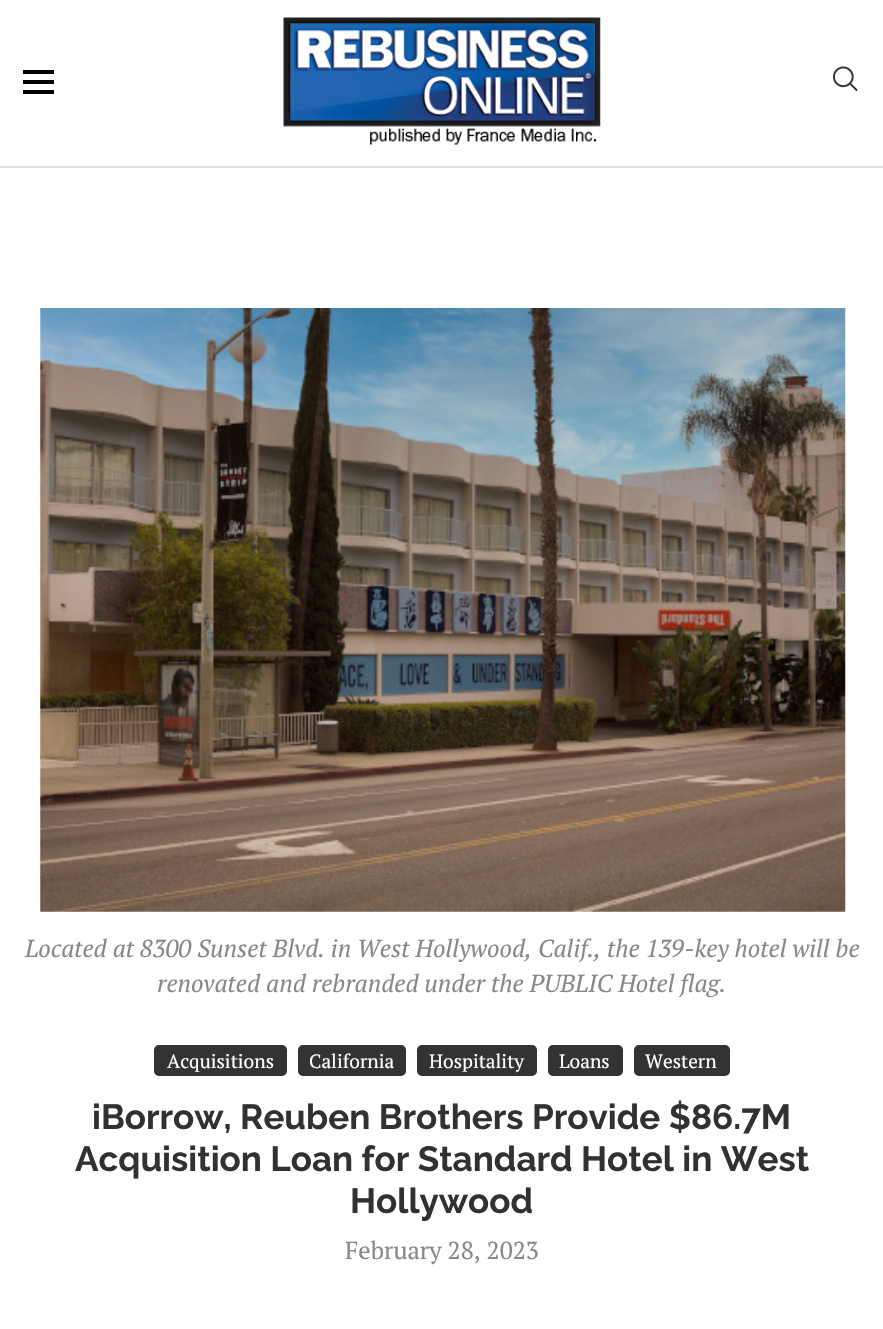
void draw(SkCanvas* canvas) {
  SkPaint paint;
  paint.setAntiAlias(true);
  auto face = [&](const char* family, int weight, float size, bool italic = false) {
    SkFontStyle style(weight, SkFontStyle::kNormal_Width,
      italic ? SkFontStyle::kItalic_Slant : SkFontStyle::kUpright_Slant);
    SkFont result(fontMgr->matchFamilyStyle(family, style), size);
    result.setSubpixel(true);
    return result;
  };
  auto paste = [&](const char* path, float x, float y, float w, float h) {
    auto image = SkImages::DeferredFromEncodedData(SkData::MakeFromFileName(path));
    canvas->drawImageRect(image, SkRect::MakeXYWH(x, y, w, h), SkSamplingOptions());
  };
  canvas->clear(0xffffffff);
  {
    const struct { float x, y, w, h; SkColor color; } items[] = {
      {0, 166, 883, 2, 0xffdedede},
      {23, 70, 31, 4, 0xff000000},
      {23, 80, 31, 4, 0xff000000},
      {23, 90, 31, 4, 0xff000000},
    };
    for (auto [x, y, w, h, color] : items) {
      paint.setColor(color);
      canvas->drawRect(SkRect::MakeXYWH(x, y, w, h), paint);
    }
  }
  paste("img/1.png", 283, 17, 318, 128);
  paste("img/2.png", 833, 66, 25, 25);
  paste("img/3.png", 40, 308, 806, 604);
  paint.setColor(0xff333333);
  canvas->drawRoundRect(SkRect::MakeXYWH(154, 1045, 133, 31), 5, 5, paint);
  canvas->drawRoundRect(SkRect::MakeXYWH(298, 1045, 108, 31), 5, 5, paint);
  canvas->drawRoundRect(SkRect::MakeXYWH(417, 1045, 120, 31), 5, 5, paint);
  canvas->drawRoundRect(SkRect::MakeXYWH(548, 1045, 75, 31), 5, 5, paint);
  canvas->drawRoundRect(SkRect::MakeXYWH(634, 1045, 96, 31), 5, 5, paint);
  auto f0 = face("PT Serif", 400, 24.5f, true);
  paint.setColor(0xff888888);
  canvas->drawString("Located at 8300 Sunset Blvd. in West Hollywood, Calif., the 139-key hotel will be", 25, 957, f0, paint);
  canvas->drawString("renovated and rebranded under the PUBLIC Hotel flag.", 157, 992, f0, paint);
  auto f1 = face("PT Serif", 400, 19.25f);
  paint.setColor(0xffffffff);
  {
    const struct { const char* s; float x, y; } items[] = {
      {"Acquisitions", 167, 1068},
      {"California", 309, 1068},
      {"Hospitality", 429, 1068},
      {"Loans", 559, 1068},
      {"Western", 645, 1068},
    };
    for (auto [s, x, y] : items) {
      canvas->drawString(s, x, y, f1, paint);
    }
  }
  auto f2 = face("Raleway", 700, 35);
  paint.setColor(0xff313131);
  {
    const struct { const char* s; float x, y; } items[] = {
      {"iBorrow, Reuben Brothers Provide $86.7M", 92, 1129},
      {"Acquisition Loan for Standard Hotel in West", 75, 1171},
      {"Hollywood", 350, 1213},
    };
    for (auto [s, x, y] : items) {
      canvas->drawString(s, x, y, f2, paint);
    }
  }
  auto f3 = face("PT Serif", 400, 24.5f);
  paint.setColor(0xff888888);
  canvas->drawString("February 28, 2023", 345, 1259, f3, paint);
}
